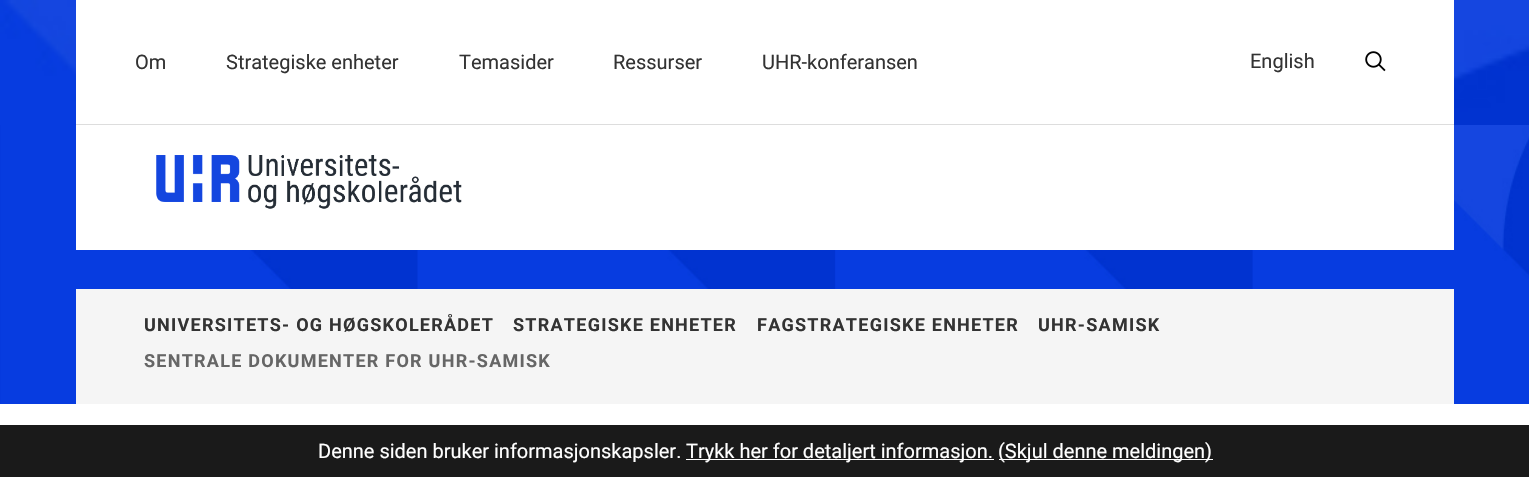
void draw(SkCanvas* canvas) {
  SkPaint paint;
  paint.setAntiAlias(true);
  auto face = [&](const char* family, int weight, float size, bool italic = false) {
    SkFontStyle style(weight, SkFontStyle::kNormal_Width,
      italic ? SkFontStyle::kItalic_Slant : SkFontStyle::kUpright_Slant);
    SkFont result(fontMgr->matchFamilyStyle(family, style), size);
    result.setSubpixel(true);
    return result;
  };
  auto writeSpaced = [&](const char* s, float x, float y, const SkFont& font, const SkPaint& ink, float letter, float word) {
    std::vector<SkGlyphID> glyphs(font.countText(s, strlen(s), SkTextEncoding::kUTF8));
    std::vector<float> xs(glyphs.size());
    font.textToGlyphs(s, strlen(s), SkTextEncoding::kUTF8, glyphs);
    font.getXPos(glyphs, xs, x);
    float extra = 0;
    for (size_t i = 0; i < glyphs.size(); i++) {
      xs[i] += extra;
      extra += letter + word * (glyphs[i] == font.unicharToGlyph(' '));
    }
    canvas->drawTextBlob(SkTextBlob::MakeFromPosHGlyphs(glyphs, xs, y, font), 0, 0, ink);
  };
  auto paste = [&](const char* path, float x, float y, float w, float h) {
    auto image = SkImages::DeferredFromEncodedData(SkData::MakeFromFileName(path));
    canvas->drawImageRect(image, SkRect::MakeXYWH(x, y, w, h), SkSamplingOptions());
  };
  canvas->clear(0xffffffff);
  paste("img/1.png", 0, 125, 1529, 279);
  paste("img/2.png", 0, 0, 1529, 125);
  paint.setColor(0xffffffff);
  canvas->drawRect(SkRect::MakeXYWH(76, 0, 1378, 124), paint);
  paint.setColor(0xffdddddd);
  canvas->drawRect(SkRect::MakeXYWH(76, 124, 1378, 1), paint);
  paste("img/3.png", 1365, 51, 21, 21);
  paint.setColor(0xffffffff);
  canvas->drawRect(SkRect::MakeXYWH(76, 125, 1378, 125), paint);
  paste("img/4.png", 156, 155, 306, 54);
  {
    const struct { float x, y, w, h; SkColor color; } items[] = {
      {76, 289, 1378, 115, 0xfff5f5f5},
      {0, 425, 1529, 52, 0xff1a1a1a},
      {686, 459, 308, 1, 0xffffffff},
      {999, 459, 214, 1, 0xffffffff},
    };
    for (auto [x, y, w, h, color] : items) {
      paint.setColor(color);
      canvas->drawRect(SkRect::MakeXYWH(x, y, w, h), paint);
    }
  }
  auto f0 = face("Roboto", 400, 20);
  paint.setColor(0xff333333);
  {
    const struct { const char* s; float x, y; } items[] = {
      {"Om", 135, 69},
      {"Strategiske enheter", 226, 69},
      {"Temasider", 459, 69},
      {"Ressurser", 613, 69},
      {"UHR-konferansen", 762, 69},
      {"English", 1250, 68},
    };
    for (auto [s, x, y] : items) {
      canvas->drawString(s, x, y, f0, paint);
    }
  }
  auto f1 = face("Roboto", 700, 18);
  {
    const struct { const char* s; float x, y; } items[] = {
      {"UNIVERSITETS- OG HØGSKOLERÅDET", 144, 331},
      {"STRATEGISKE ENHETER", 513, 331},
      {"FAGSTRATEGISKE ENHETER", 757, 331},
      {"UHR-SAMISK", 1038, 331},
    };
    for (auto [s, x, y] : items) {
      writeSpaced(s, x, y, f1, paint, 1.25f, 0);
    }
  }
  paint.setColor(0xff666666);
  writeSpaced("SENTRALE DOKUMENTER FOR UHR-SAMISK", 144, 367, f1, paint, 1.25f, 0);
  paint.setColor(0xffffffff);
  {
    const struct { const char* s; float x, y; } items[] = {
      {"Denne siden bruker informasjonskapsler.", 318, 458},
      {"Trykk her for detaljert informasjon.", 686, 458},
      {"(Skjul denne meldingen)", 998, 458},
    };
    for (auto [s, x, y] : items) {
      canvas->drawString(s, x, y, f0, paint);
    }
  }
}
